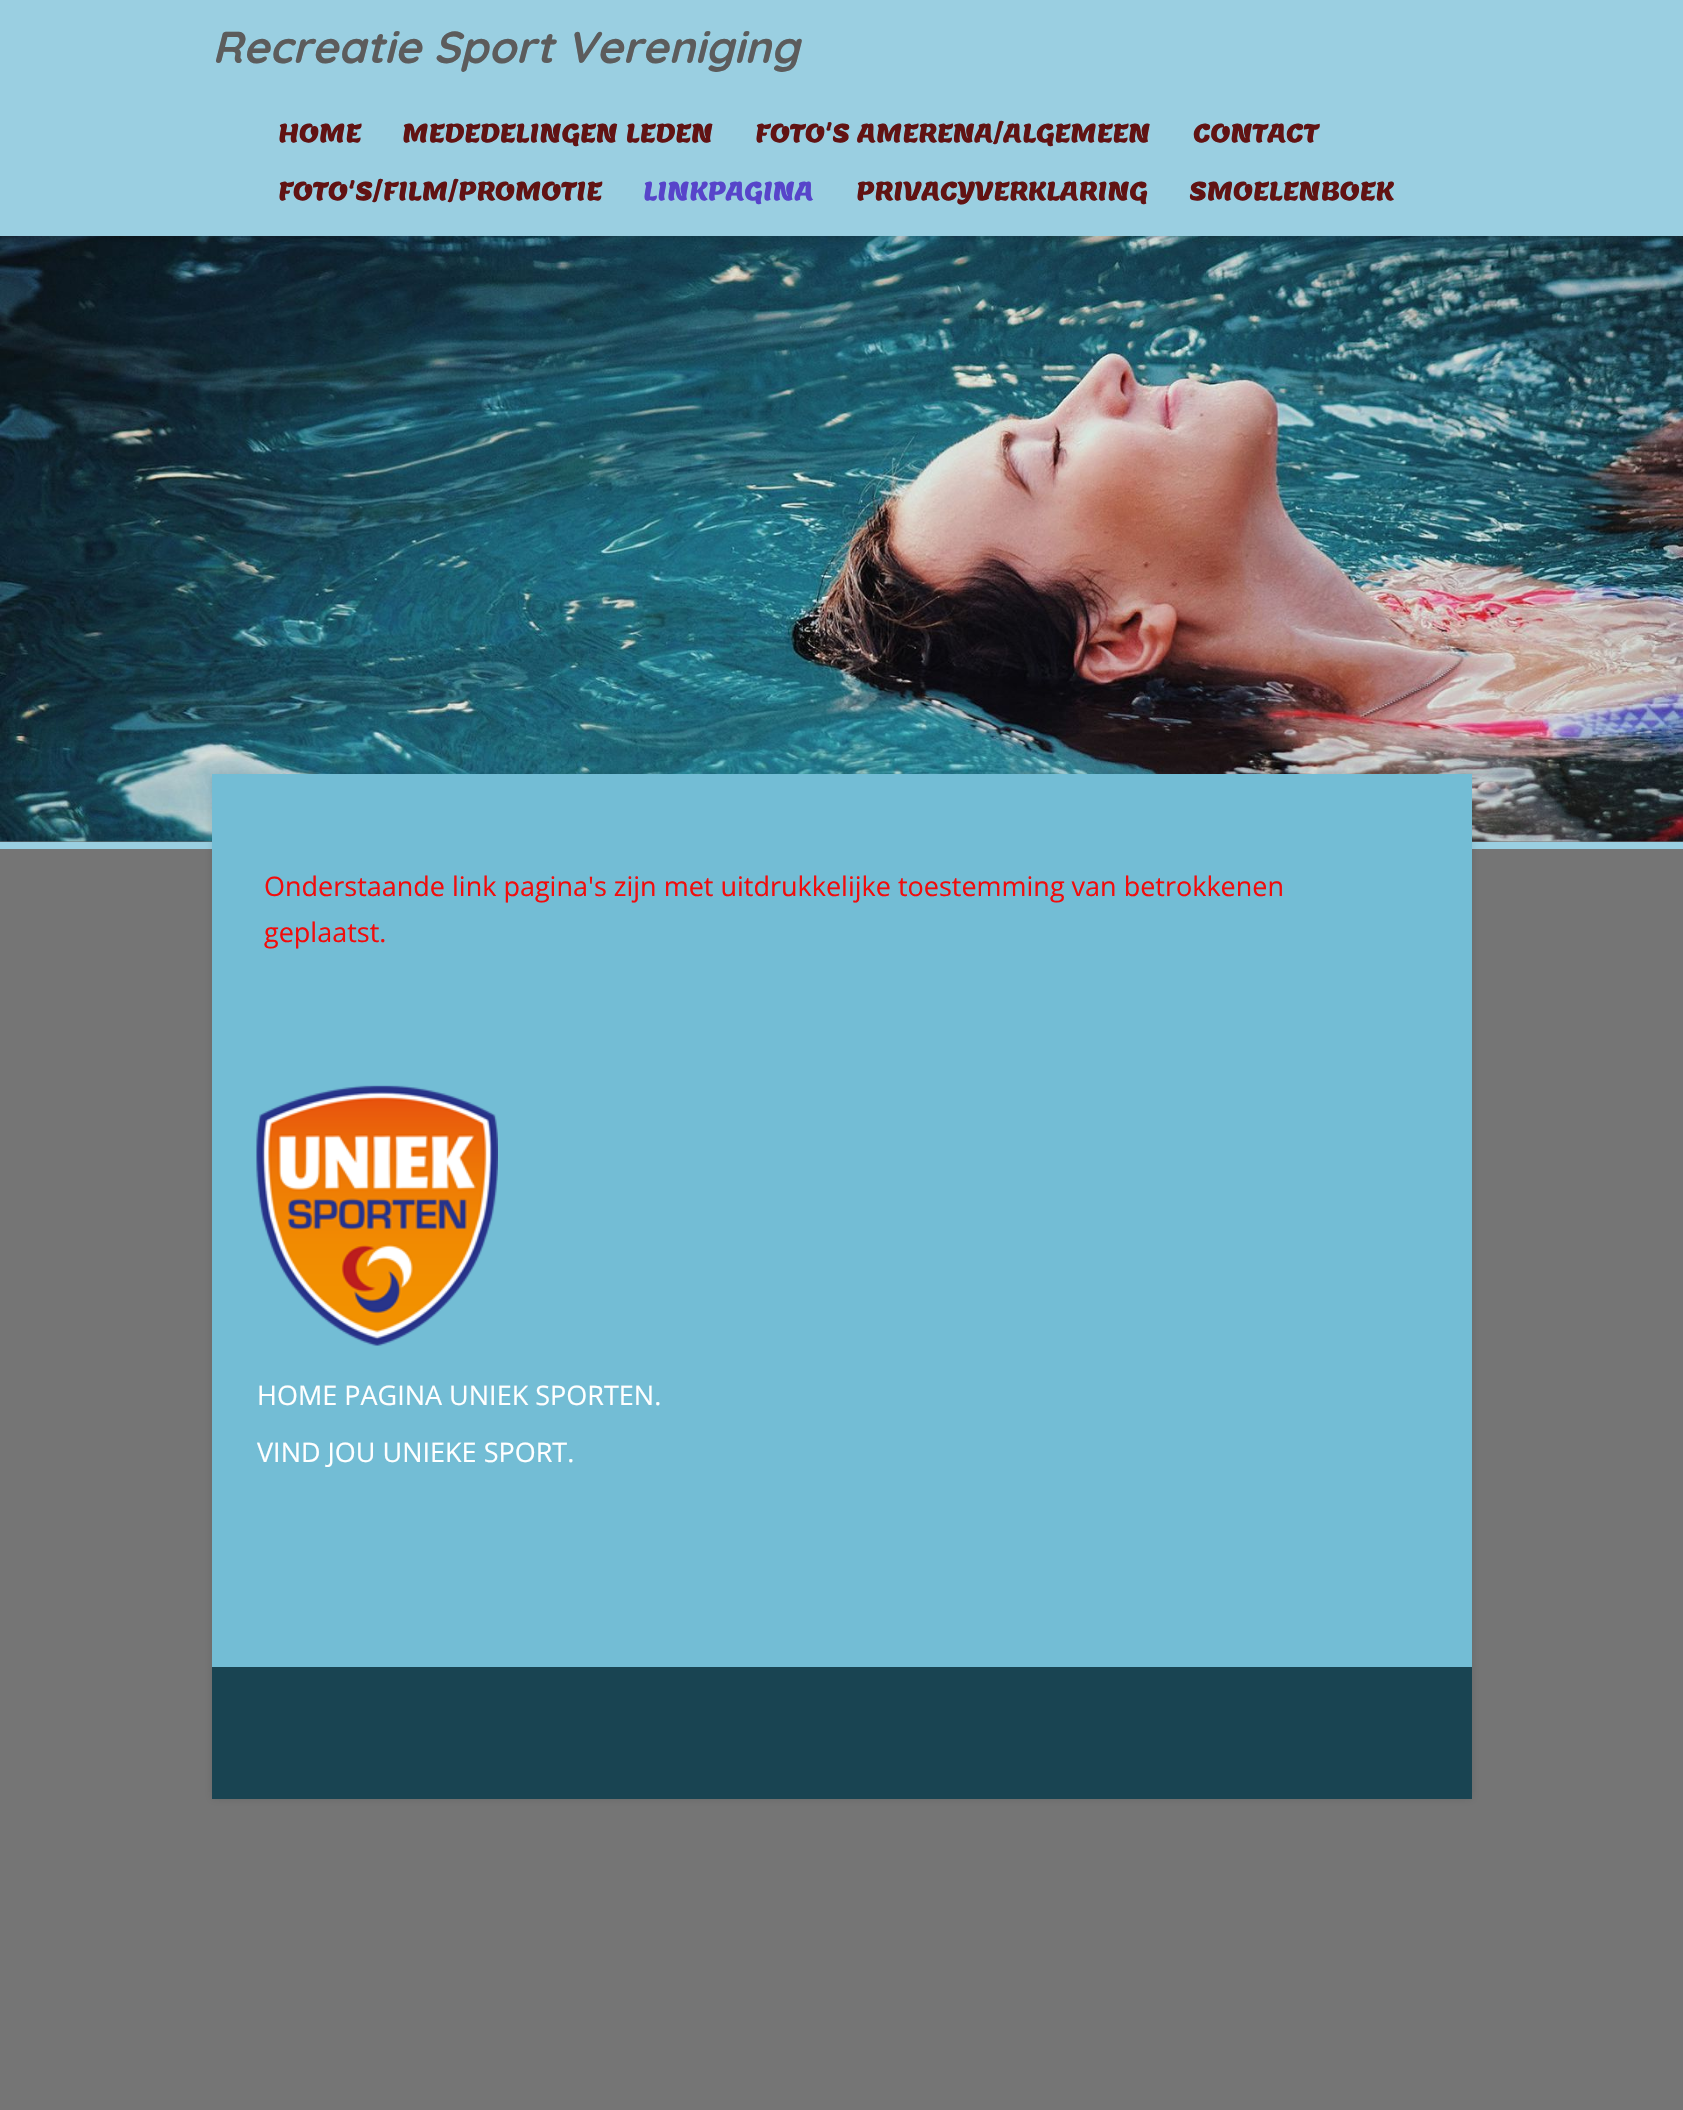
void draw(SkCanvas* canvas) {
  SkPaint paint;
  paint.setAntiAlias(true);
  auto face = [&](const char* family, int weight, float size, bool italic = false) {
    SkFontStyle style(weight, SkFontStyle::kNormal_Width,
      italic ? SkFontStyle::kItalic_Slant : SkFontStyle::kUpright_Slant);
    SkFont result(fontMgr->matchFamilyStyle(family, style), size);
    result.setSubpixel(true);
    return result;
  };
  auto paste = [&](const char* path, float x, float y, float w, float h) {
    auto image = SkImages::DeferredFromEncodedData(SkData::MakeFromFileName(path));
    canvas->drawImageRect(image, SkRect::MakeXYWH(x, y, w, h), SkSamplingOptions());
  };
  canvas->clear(0xff757575);
  paste("img/1.png", 0, 236, 1683, 606);
  paint.setColor(0x33000000);
  paint.setMaskFilter(SkMaskFilter::MakeBlur(kNormal_SkBlurStyle, 4));
  canvas->drawRect(SkRect::MakeXYWH(0, 0, 1683, 236), paint);
  paint.setMaskFilter(nullptr);
  paint.setColor(0xff9acfe1);
  canvas->drawRect(SkRect::MakeXYWH(0, 0, 1683, 236), paint);
  canvas->drawRect(SkRect::MakeXYWH(0, 842, 1683, 7), paint);
  paint.setColor(0x1a000000);
  paint.setMaskFilter(SkMaskFilter::MakeBlur(kNormal_SkBlurStyle, 4));
  canvas->drawRect(SkRect::MakeXYWH(212, 774, 1260, 1025), paint);
  paint.setMaskFilter(nullptr);
  paint.setColor(0xff73bdd5);
  canvas->drawRect(SkRect::MakeXYWH(212, 774, 1260, 893), paint);
  paste("img/2.png", 256, 1085, 242, 261);
  paint.setColor(0xff194452);
  canvas->drawRect(SkRect::MakeXYWH(212, 1667, 1260, 132), paint);
  auto f0 = face("Quicksand", 700, 44.6f, true);
  paint.setColor(0xff5c5c5c);
  canvas->drawString("Recreatie Sport Vereniging", 212, 63, f0, paint);
  auto f1 = face("Lemon", 400, 25.5f);
  paint.setColor(0xff611313);
  {
    const struct { const char* s; float x, y; } items[] = {
      {"HOME", 278, 142},
      {"MEDEDELINGEN LEDEN", 402, 142},
      {"FOTO'S AMERENA/ALGEMEEN", 755, 142},
      {"CONTACT", 1193, 142},
      {"FOTO'S/FILM/PROMOTIE", 278, 200},
    };
    for (auto [s, x, y] : items) {
      canvas->drawString(s, x, y, f1, paint);
    }
  }
  paint.setColor(0xff5744ca);
  canvas->drawString("LINKPAGINA", 643, 200, f1, paint);
  paint.setColor(0xff611313);
  canvas->drawString("PRIVACYVERKLARING", 856, 200, f1, paint);
  canvas->drawString("SMOELENBOEK", 1189, 200, f1, paint);
  auto f2 = face("Open Sans", 400, 27);
  paint.setColor(0xfff10c0c);
  canvas->drawString("Onderstaande link pagina's zijn met uitdrukkelijke toestemming van betrokkenen", 264, 896, f2, paint);
  canvas->drawString("geplaatst.", 264, 942, f2, paint);
  paint.setColor(0xffffffff);
  canvas->drawString("HOME PAGINA UNIEK SPORTEN.", 257, 1405, f2, paint);
  canvas->drawString("VIND JOU UNIEKE SPORT.", 257, 1462, f2, paint);
}
